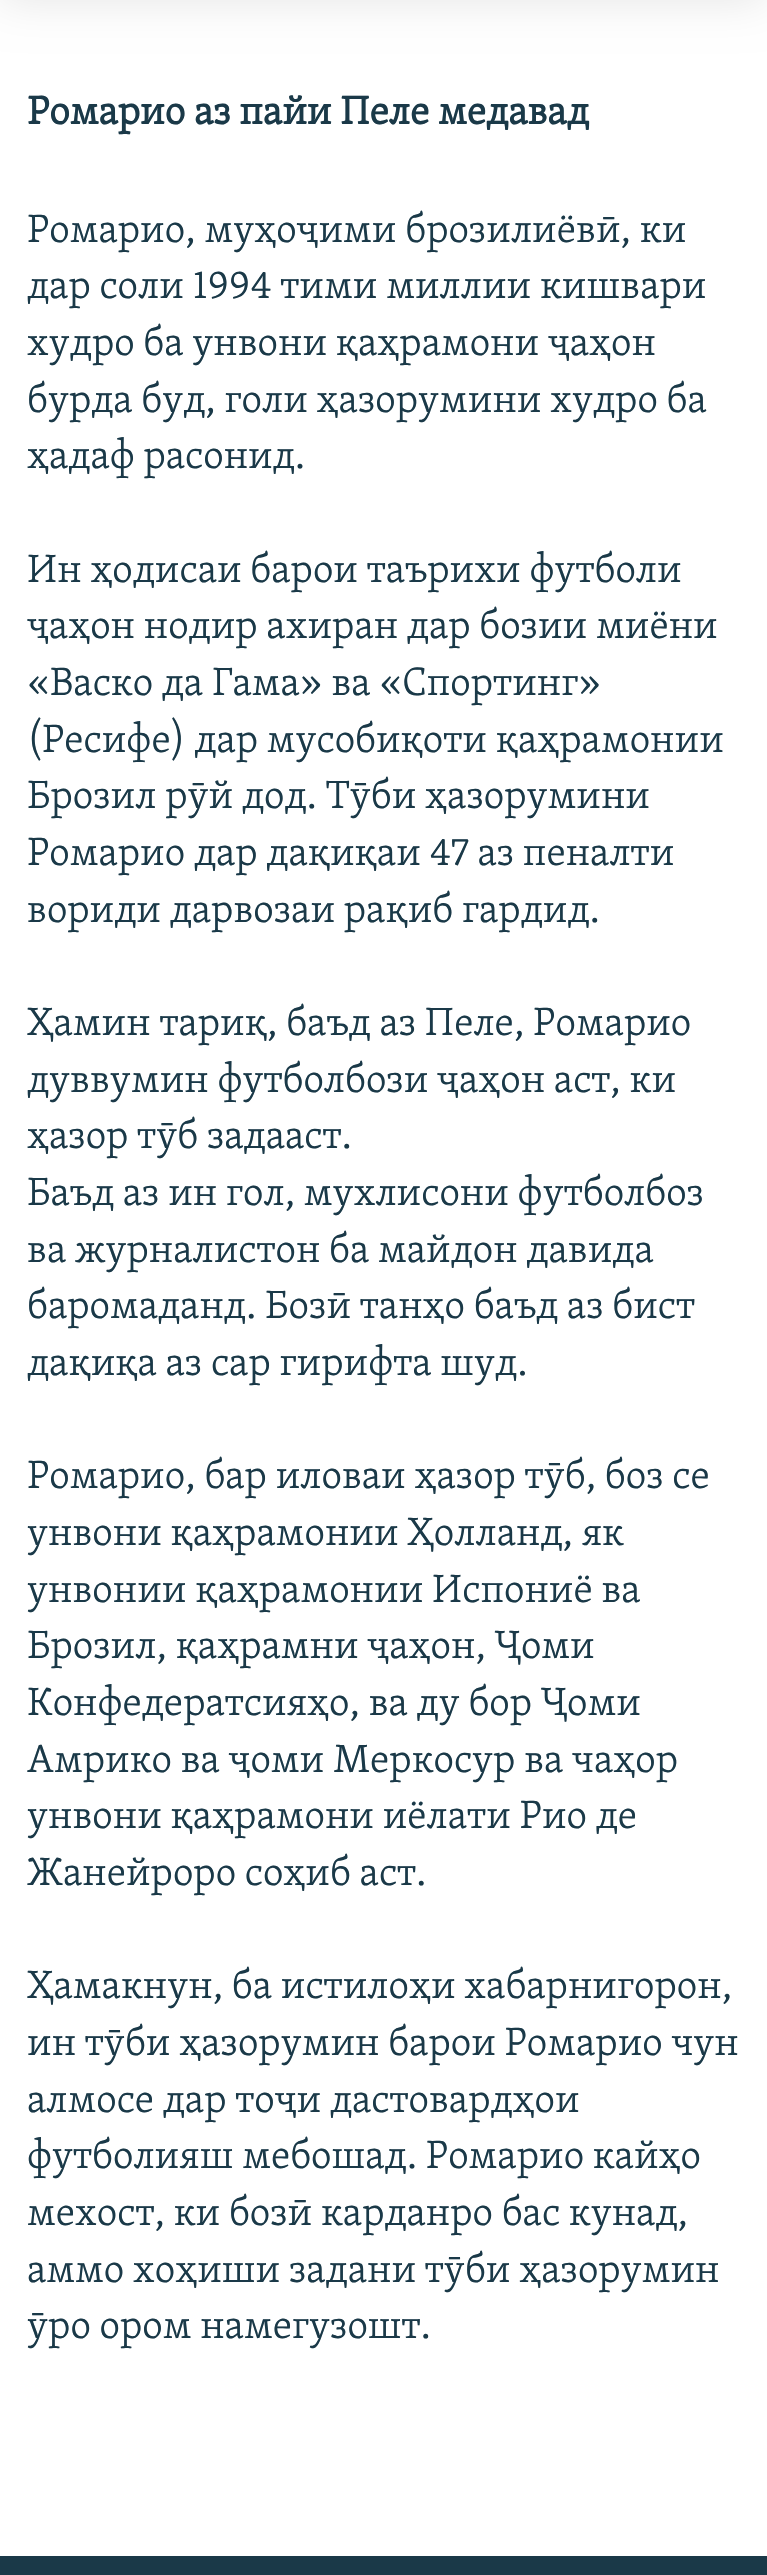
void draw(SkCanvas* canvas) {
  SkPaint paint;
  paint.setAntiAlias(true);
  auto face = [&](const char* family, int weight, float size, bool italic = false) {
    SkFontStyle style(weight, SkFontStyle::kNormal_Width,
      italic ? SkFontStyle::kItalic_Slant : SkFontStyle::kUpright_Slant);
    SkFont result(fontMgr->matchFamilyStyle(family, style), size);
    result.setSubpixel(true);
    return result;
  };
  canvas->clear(0xffffffff);
  paint.setColor(0x1a000000);
  paint.setMaskFilter(SkMaskFilter::MakeBlur(kNormal_SkBlurStyle, 22.5f));
  canvas->drawRect(SkRect::MakeXYWH(0, -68, 767, 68), paint);
  paint.setMaskFilter(nullptr);
  paint.setColor(0xff1a3948);
  canvas->drawRect(SkRect::MakeXYWH(0, 2556, 767, 19), paint);
  auto f0 = face("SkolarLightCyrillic", 700, 40.5f);
  canvas->drawString("Ромарио аз пайи Пеле медавад", 27, 124, f0, paint);
  auto f1 = face("SkolarLightCyrillic", 300, 40.5f);
  {
    const struct { const char* s; float x, y; } items[] = {
      {"Ромарио, муҳоҷими брозилиёвӣ, ки", 27, 242},
      {"дар соли 1994 тими миллии кишвари", 27, 298},
      {"худро ба унвони қаҳрамони ҷаҳон", 27, 355},
      {"бурда буд, голи ҳазорумини худро ба", 27, 412},
      {"ҳадаф расонид.", 27, 468},
      {"Ин ҳодисаи барои таърихи футболи", 27, 582},
      {"ҷаҳон нодир ахиран дар бозии миёни", 27, 638},
      {"«Васко да Гама» ва «Спортинг»", 27, 695},
      {"(Ресифе) дар мусобиқоти қаҳрамонии", 27, 752},
      {"Брозил рӯй дод. Тӯби ҳазорумини", 27, 808},
      {"Ромарио дар дақиқаи 47 аз пеналти", 27, 865},
      {"вориди дарвозаи рақиб гардид.", 27, 922},
      {"Ҳамин тариқ, баъд аз Пеле, Ромарио", 27, 1035},
      {"дуввумин футболбози ҷаҳон аст, ки", 27, 1092},
      {"ҳазор тӯб задааст.", 27, 1148},
      {"Баъд аз ин гол, мухлисони футболбоз", 27, 1205},
      {"ва журналистон ба майдон давида", 27, 1262},
      {"баромаданд. Бозӣ танҳо баъд аз бист", 27, 1318},
      {"дақиқа аз сар гирифта шуд.", 27, 1375},
      {"Ромарио, бар иловаи ҳазор тӯб, боз се", 27, 1488},
      {"унвони қаҳрамонии Ҳолланд, як", 27, 1545},
      {"унвонии қаҳрамонии Испониё ва", 27, 1602},
      {"Брозил, қаҳрамни ҷаҳон, Ҷоми", 27, 1658},
      {"Конфедератсияҳо, ва ду бор Ҷоми", 27, 1715},
      {"Амрико ва ҷоми Меркосур ва чаҳор", 27, 1772},
      {"унвони қаҳрамони иёлати Рио де", 27, 1828},
      {"Жанейроро соҳиб аст.", 27, 1885},
      {"Ҳамакнун, ба истилоҳи хабарнигорон,", 27, 1998},
      {"ин тӯби ҳазорумин барои Ромарио чун", 27, 2055},
      {"алмосе дар тоҷи дастовардҳои", 27, 2112},
      {"футболияш мебошад. Ромарио кайҳо", 27, 2168},
      {"мехост, ки бозӣ карданро бас кунад,", 27, 2225},
      {"аммо хоҳиши задани тӯби ҳазорумин", 27, 2282},
      {"ӯро ором намегузошт.", 27, 2338},
    };
    for (auto [s, x, y] : items) {
      canvas->drawString(s, x, y, f1, paint);
    }
  }
}
